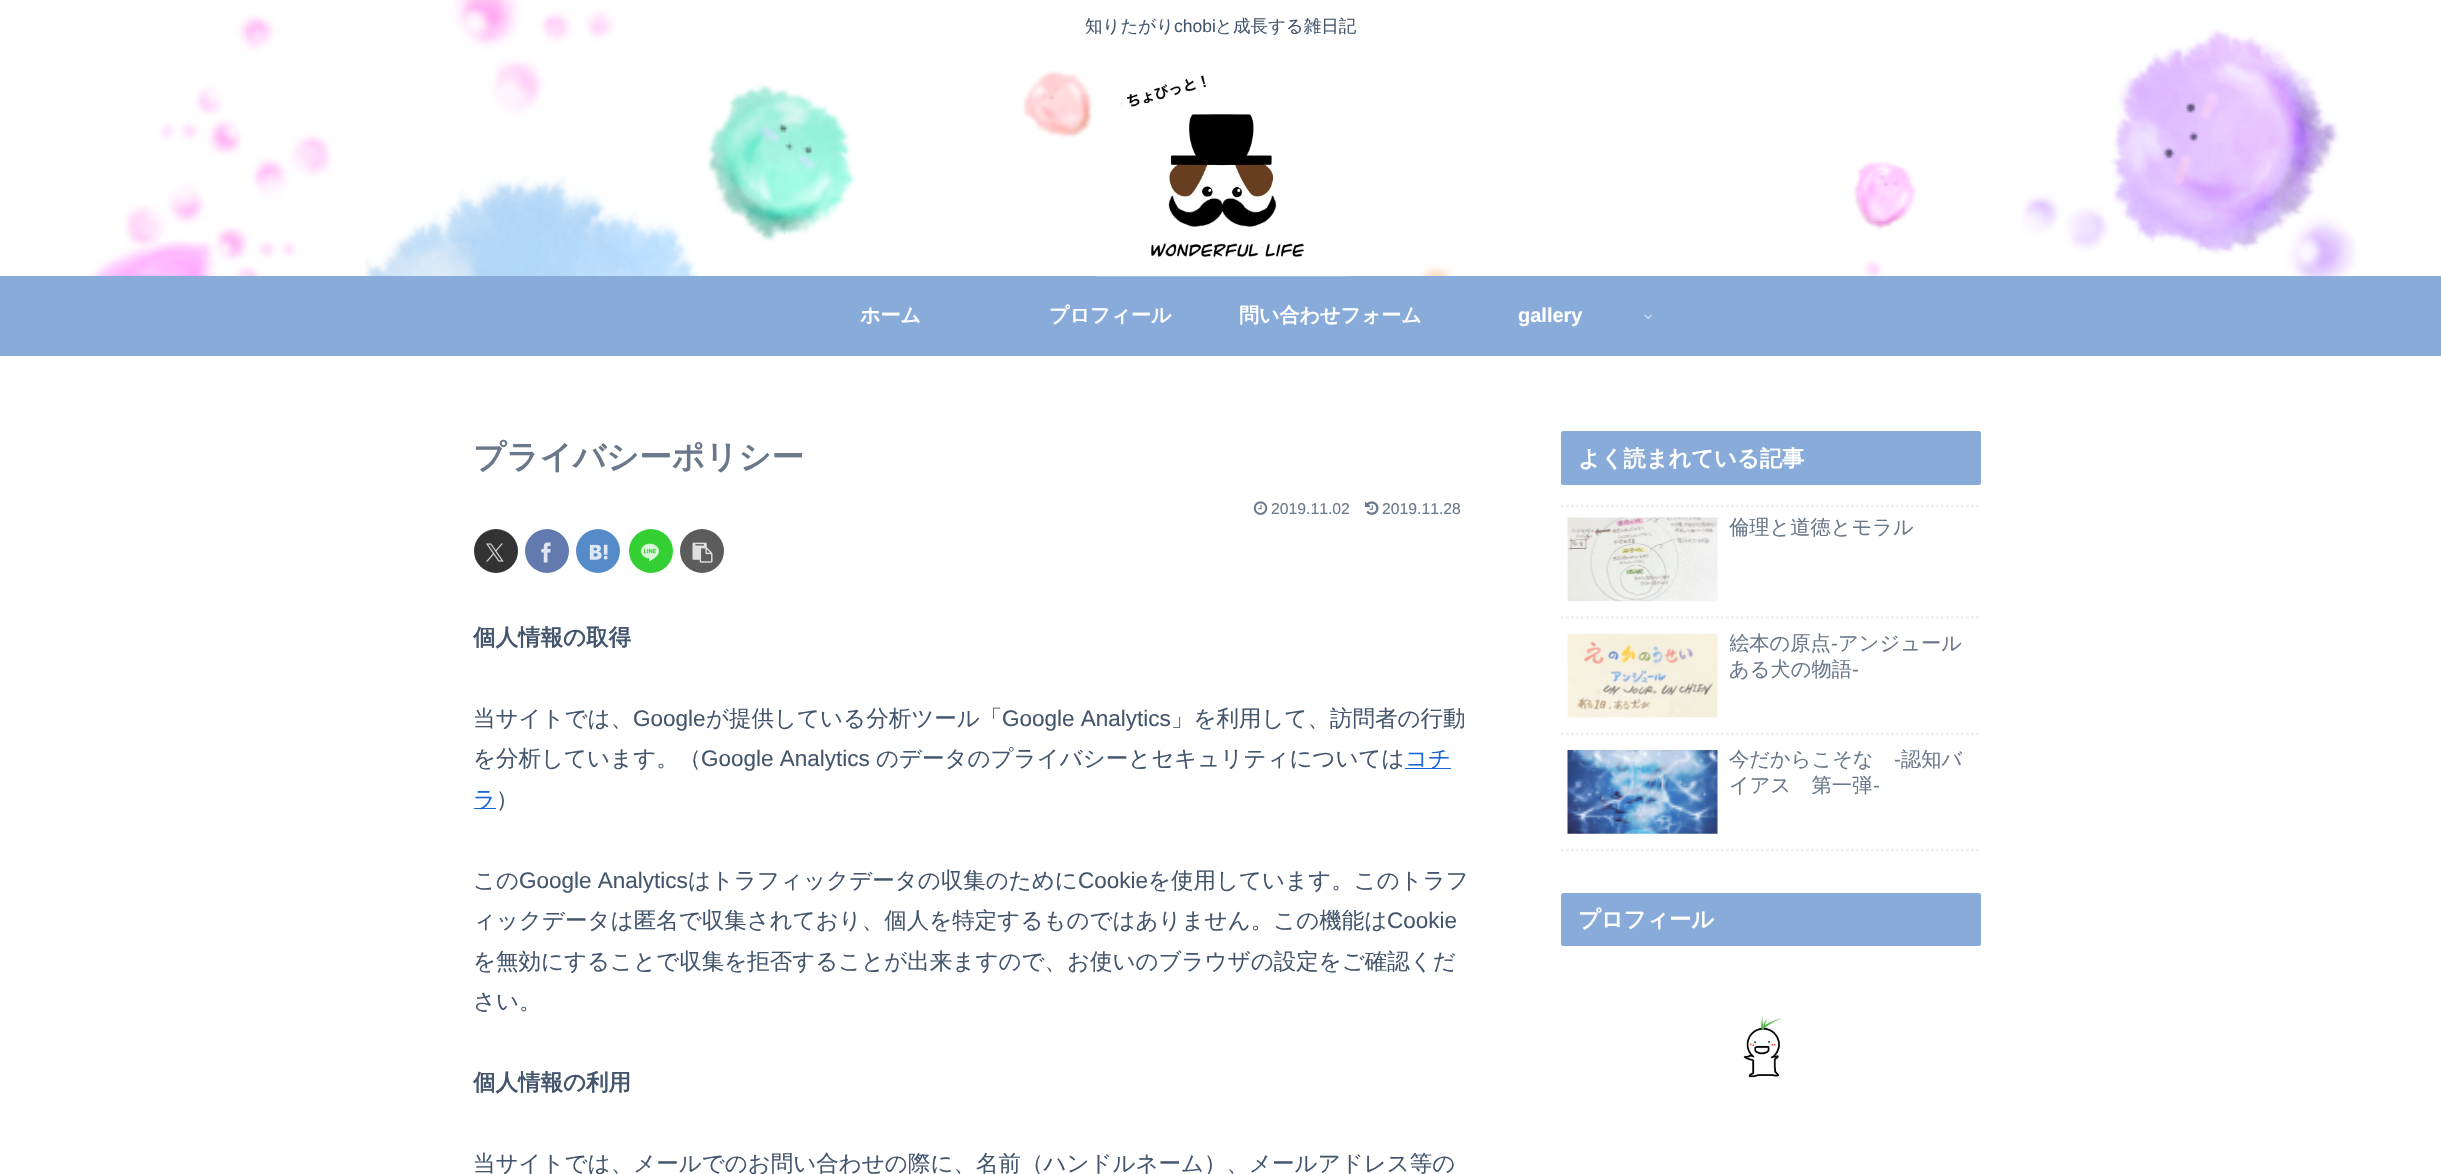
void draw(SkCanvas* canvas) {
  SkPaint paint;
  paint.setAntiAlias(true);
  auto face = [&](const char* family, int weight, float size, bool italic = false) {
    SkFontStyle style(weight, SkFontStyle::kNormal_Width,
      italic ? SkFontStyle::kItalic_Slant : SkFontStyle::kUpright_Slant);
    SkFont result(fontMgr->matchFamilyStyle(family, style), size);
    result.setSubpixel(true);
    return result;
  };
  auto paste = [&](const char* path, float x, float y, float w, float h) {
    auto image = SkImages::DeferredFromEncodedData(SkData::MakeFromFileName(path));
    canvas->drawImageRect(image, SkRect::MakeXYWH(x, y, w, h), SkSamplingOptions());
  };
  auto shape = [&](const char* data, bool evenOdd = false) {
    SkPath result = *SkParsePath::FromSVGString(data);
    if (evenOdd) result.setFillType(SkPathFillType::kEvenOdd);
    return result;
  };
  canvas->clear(0xffffffff);
  paste("img/1.png", 88, 0, 2269, 276);
  paint.setColor(0xff88abda);
  canvas->drawRect(SkRect::MakeXYWH(0, 276, 2441, 80), paint);
  paste("img/2.png", 1096, 75, 251, 202);
  paste("img/3.png", 1644, 314, 8, 5);
  paste("img/4.png", 1253, 501, 15, 14);
  paste("img/5.png", 1365, 501, 14, 14);
  paint.setColor(0xff333333);
  canvas->drawCircle(496, 551, 22, paint);
  paste("img/6.png", 486, 543, 18, 19);
  paint.setColor(0xff627aad);
  canvas->drawCircle(547, 551, 22, paint);
  paste("img/7.png", 541, 542, 10, 21);
  paint.setColor(0xff568bca);
  canvas->drawCircle(598, 551, 22, paint);
  paste("img/8.png", 589, 544, 19, 16);
  paint.setColor(0xff33cf33);
  canvas->drawCircle(651, 551, 22, paint);
  paste("img/9.png", 641, 543, 18, 19);
  paint.setColor(0xff5c5c5c);
  canvas->drawCircle(702, 551, 22, paint);
  paste("img/10.png", 692, 542, 21, 21);
  paint.setColor(0xff1967d2);
  canvas->drawRect(SkRect::MakeXYWH(1405, 768, 46, 1), paint);
  canvas->drawRect(SkRect::MakeXYWH(474, 808, 22, 1), paint);
  paint.setColor(0xff88abda);
  canvas->drawRoundRect(SkRect::MakeXYWH(1561, 431, 420, 54), 2.5f, 2.5f, paint);
  paint.setStroke(true);
  paint.setStrokeWidth(2.5f);
  paint.setColor(0xffeeeeee);
  paint.setPathEffect(SkDashPathEffect::Make({{2.5f, 2.5f}}, 0));
  canvas->drawPath(shape("M1561 506H1981"), paint);
  paint.setPathEffect(nullptr);
  paint.setPathEffect(SkDashPathEffect::Make({{2.5f, 2.5f}}, 0));
  canvas->drawPath(shape("M1561 617.5H1981"), paint);
  paint.setPathEffect(nullptr);
  paste("img/11.png", 1567, 517, 151, 85);
  paint.setPathEffect(SkDashPathEffect::Make({{2.5f, 2.5f}}, 0));
  canvas->drawPath(shape("M1561 734H1981"), paint);
  paint.setPathEffect(nullptr);
  paste("img/12.png", 1567, 633, 151, 85);
  paint.setPathEffect(SkDashPathEffect::Make({{2.5f, 2.5f}}, 0));
  canvas->drawPath(shape("M1561 850H1981"), paint);
  paint.setPathEffect(nullptr);
  paste("img/13.png", 1567, 750, 151, 84);
  paint.setStroke(false);
  paint.setColor(0xff88abda);
  canvas->drawRoundRect(SkRect::MakeXYWH(1561, 893, 420, 53), 2.5f, 2.5f, paint);
  paste("img/14.png", 1743, 1016, 39, 62);
  auto f0 = face("WenQuanYi Zen Hei", 500, 17.5f);
  paint.setColor(0xff44566d);
  canvas->drawString("知りたがり", 1085, 32, f0, paint);
  auto f1 = face("Liberation Sans", 400, 17.5f);
  canvas->drawString("chobi", 1174, 32, f1, paint);
  canvas->drawString("と成長する雑日記", 1215, 32, f0, paint);
  auto f2 = face("WenQuanYi Zen Hei", 700, 20);
  paint.setColor(0xffffffff);
  {
    const struct { const char* s; float x, y; } items[] = {
      {"ホーム", 860, 322},
      {"プロフィール", 1049, 322},
      {"問い合わせフォーム", 1239, 322},
    };
    for (auto [s, x, y] : items) {
      canvas->drawString(s, x, y, f2, paint);
    }
  }
  auto f3 = face("Liberation Sans", 700, 20);
  canvas->drawString("gallery", 1518, 322, f3, paint);
  auto f4 = face("WenQuanYi Zen Hei", 700, 32.5f);
  paint.setColor(0xff69788a);
  canvas->drawString("プライバシーポリシー", 473, 468, f4, paint);
  auto f5 = face("Liberation Sans", 400, 15.75f);
  canvas->drawString("2019.11.02", 1271, 514, f5, paint);
  canvas->drawString("2019.11.28", 1382, 514, f5, paint);
  auto f6 = face("WenQuanYi Zen Hei", 700, 22.5f);
  paint.setColor(0xff44566d);
  canvas->drawString("個人情報の取得", 473, 645, f6, paint);
  auto f7 = face("WenQuanYi Zen Hei", 500, 22.5f);
  canvas->drawString("当サイトでは、", 473, 726, f7, paint);
  auto f8 = face("Liberation Sans", 400, 22.5f);
  canvas->drawString("Google", 633, 726, f8, paint);
  canvas->drawString("が提供している分析ツール「", 706, 726, f7, paint);
  canvas->drawString("Google Analytics", 1002, 726, f8, paint);
  canvas->drawString("」を利用して、訪問者の行動", 1171, 726, f7, paint);
  canvas->drawString("を分析しています。（", 473, 766, f7, paint);
  canvas->drawString("Google Analytics", 701, 766, f8, paint);
  canvas->drawString("のデータのプライバシーとセキュリティについては", 876, 766, f7, paint);
  paint.setColor(0xff1967d2);
  canvas->drawString("コチ", 1405, 766, f7, paint);
  canvas->drawString("ラ", 473, 807, f7, paint);
  paint.setColor(0xff44566d);
  canvas->drawString("）", 496, 807, f7, paint);
  canvas->drawString("この", 473, 888, f7, paint);
  canvas->drawString("Google Analytics", 519, 888, f8, paint);
  canvas->drawString("はトラフィックデータの収集のために", 688, 888, f7, paint);
  canvas->drawString("Cookie", 1078, 888, f8, paint);
  canvas->drawString("を使用しています。このトラフ", 1148, 888, f7, paint);
  canvas->drawString("ィックデータは匿名で収集されており、個人を特定するものではありません。この機能は", 473, 928, f7, paint);
  canvas->drawString("Cookie", 1387, 928, f8, paint);
  canvas->drawString("を無効にすることで収集を拒否することが出来ますので、お使いのブラウザの設定をご確認くだ", 473, 969, f7, paint);
  canvas->drawString("さい。", 473, 1009, f7, paint);
  canvas->drawString("個人情報の利用", 473, 1090, f6, paint);
  canvas->drawString("当サイトでは、メールでのお問い合わせの際に、名前（ハンドルネーム）、メールアドレス等の", 473, 1171, f7, paint);
  auto f9 = face("WenQuanYi Zen Hei", 700, 22.25f);
  paint.setColor(0xffffffff);
  canvas->drawString("よく読まれている記事", 1578, 466, f9, paint);
  auto f10 = face("WenQuanYi Zen Hei", 500, 20.25f);
  paint.setColor(0xff69788a);
  canvas->drawString("倫理と道徳とモラル", 1729, 534, f10, paint);
  canvas->save();
  canvas->clipRect(SkRect::MakeXYWH(1730, 630, 245, 53));
  canvas->drawString("絵本の原点", 1729, 650, f10, paint);
  canvas->restore();
  auto f11 = face("Liberation Sans", 400, 20.25f);
  canvas->drawString("-", 1831, 650, f11, paint);
  canvas->drawString("アンジュール", 1838, 650, f10, paint);
  canvas->drawString("ある犬の物語", 1729, 676, f10, paint);
  canvas->drawString("-", 1852, 676, f11, paint);
  canvas->drawString("今だからこそな", 1729, 766, f10, paint);
  canvas->drawString("-", 1894, 766, f11, paint);
  canvas->drawString("認知バ", 1901, 766, f10, paint);
  canvas->drawString("イアス　第一弾", 1729, 792, f10, paint);
  canvas->drawString("-", 1873, 792, f11, paint);
  paint.setColor(0xffffffff);
  canvas->drawString("プロフィール", 1578, 927, f9, paint);
}
